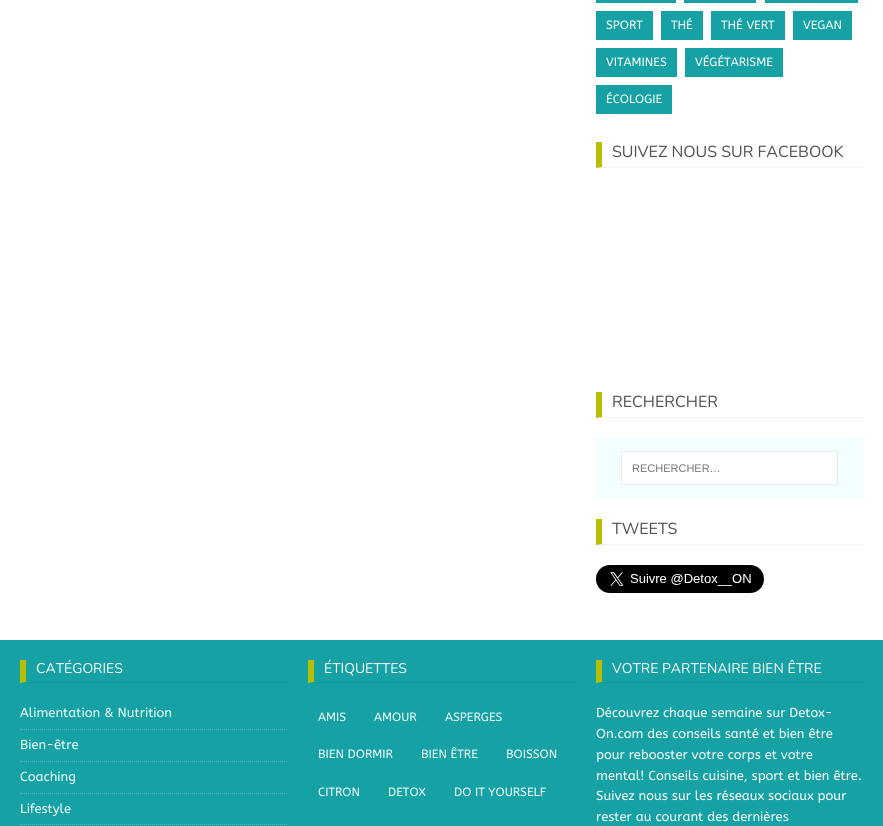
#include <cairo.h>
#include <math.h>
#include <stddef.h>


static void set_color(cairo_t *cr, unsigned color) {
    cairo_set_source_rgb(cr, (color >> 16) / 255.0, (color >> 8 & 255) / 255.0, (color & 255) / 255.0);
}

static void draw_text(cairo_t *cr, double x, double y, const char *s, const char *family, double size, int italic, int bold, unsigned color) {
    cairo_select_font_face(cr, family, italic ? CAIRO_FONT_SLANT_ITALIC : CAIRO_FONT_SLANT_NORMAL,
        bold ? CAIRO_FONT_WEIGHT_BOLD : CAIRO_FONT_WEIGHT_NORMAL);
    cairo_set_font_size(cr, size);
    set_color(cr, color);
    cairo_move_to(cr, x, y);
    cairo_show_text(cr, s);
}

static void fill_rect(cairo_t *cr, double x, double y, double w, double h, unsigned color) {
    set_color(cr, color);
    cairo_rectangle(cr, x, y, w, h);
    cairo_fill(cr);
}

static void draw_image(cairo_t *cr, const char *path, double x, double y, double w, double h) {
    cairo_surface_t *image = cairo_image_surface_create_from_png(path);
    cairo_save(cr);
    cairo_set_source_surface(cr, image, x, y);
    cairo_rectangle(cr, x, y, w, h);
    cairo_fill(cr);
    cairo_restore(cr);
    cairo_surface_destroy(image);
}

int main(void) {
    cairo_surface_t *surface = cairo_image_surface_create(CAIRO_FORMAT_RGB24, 883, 826);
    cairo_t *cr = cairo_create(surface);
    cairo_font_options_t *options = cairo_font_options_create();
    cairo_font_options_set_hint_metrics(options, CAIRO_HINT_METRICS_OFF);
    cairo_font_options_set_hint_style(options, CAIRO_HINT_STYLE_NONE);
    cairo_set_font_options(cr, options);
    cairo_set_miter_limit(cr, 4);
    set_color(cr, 0x16A1A4);
    cairo_paint(cr);
    fill_rect(cr, 0, 0, 883, 640, 0xFFFFFF);
    fill_rect(cr, 596, 0, 80, 3, 0x16A1A4);
    fill_rect(cr, 684, 0, 72, 3, 0x16A1A4);
    fill_rect(cr, 765, 0, 93, 3, 0x16A1A4);
    fill_rect(cr, 596, 11, 57, 29, 0x16A1A4);
    draw_text(cr, 606, 29, "SPORT", "ABeeZee", 12, 0, 0, 0xFFFFFF);
    fill_rect(cr, 661, 11, 42, 29, 0x16A1A4);
    draw_text(cr, 671, 29, "THÉ", "ABeeZee", 12, 0, 0, 0xFFFFFF);
    fill_rect(cr, 711, 11, 74, 29, 0x16A1A4);
    draw_text(cr, 721, 29, "THÉ VERT", "ABeeZee", 12, 0, 0, 0xFFFFFF);
    fill_rect(cr, 793, 11, 59, 29, 0x16A1A4);
    draw_text(cr, 803, 29, "VEGAN", "ABeeZee", 12, 0, 0, 0xFFFFFF);
    fill_rect(cr, 596, 48, 81, 29, 0x16A1A4);
    draw_text(cr, 606, 66, "VITAMINES", "ABeeZee", 12, 0, 0, 0xFFFFFF);
    fill_rect(cr, 685, 48, 98, 29, 0x16A1A4);
    draw_text(cr, 695, 66, "VÉGÉTARISME", "ABeeZee", 12, 0, 0, 0xFFFFFF);
    fill_rect(cr, 596, 85, 76, 29, 0x16A1A4);
    draw_text(cr, 606, 103, "ÉCOLOGIE", "ABeeZee", 12, 0, 0, 0xFFFFFF);
    cairo_new_path(cr);
    cairo_move_to(cr, 596, 167.5);
    cairo_line_to(cr, 863, 167.5);
    set_color(cr, 0xE6E6E6);
    cairo_set_line_width(cr, 1);
    cairo_set_dash(cr, (double[]){1, 1}, 2, 0);
    cairo_stroke(cr);
    set_color(cr, 0xBBBD00);
    cairo_new_path(cr);
    cairo_move_to(cr, 596, 168);
    cairo_line_to(cr, 596, 142);
    cairo_line_to(cr, 602, 142);
    cairo_line_to(cr, 602, 167);
    cairo_close_path(cr);
    cairo_fill(cr);
    draw_text(cr, 612, 157, "SUIVEZ NOUS SUR FACEBOOK", "Nunito ExtraLight", 16, 0, 0, 0x4F4F4F);
    cairo_new_path(cr);
    cairo_move_to(cr, 596, 417.5);
    cairo_line_to(cr, 863, 417.5);
    set_color(cr, 0xE6E6E6);
    cairo_stroke(cr);
    set_color(cr, 0xBBBD00);
    cairo_new_path(cr);
    cairo_move_to(cr, 596, 418);
    cairo_line_to(cr, 596, 392);
    cairo_line_to(cr, 602, 392);
    cairo_line_to(cr, 602, 417);
    cairo_close_path(cr);
    cairo_fill(cr);
    draw_text(cr, 612, 407, "RECHERCHER", "Nunito ExtraLight", 16, 0, 0, 0x4F4F4F);
    fill_rect(cr, 596, 438, 267, 61, 0xF2FFFF);
    set_color(cr, 0xFFFFFF);
    cairo_rectangle(cr, 621.5, 451.5, 216, 33);
    cairo_fill_preserve(cr);
    set_color(cr, 0xEBEBEB);
    cairo_set_dash(cr, NULL, 0, 0);
    cairo_stroke(cr);
    draw_text(cr, 632, 472, "RECHERCHER…", "Liberation Sans", 11, 0, 0, 0x757575);
    cairo_new_path(cr);
    cairo_move_to(cr, 596, 544.5);
    cairo_line_to(cr, 863, 544.5);
    set_color(cr, 0xE6E6E6);
    cairo_set_dash(cr, (double[]){1, 1}, 2, 0);
    cairo_stroke(cr);
    set_color(cr, 0xBBBD00);
    cairo_new_path(cr);
    cairo_move_to(cr, 596, 545);
    cairo_line_to(cr, 596, 519);
    cairo_line_to(cr, 602, 519);
    cairo_line_to(cr, 602, 544);
    cairo_close_path(cr);
    cairo_fill(cr);
    draw_text(cr, 612, 534, "TWEETS", "Nunito ExtraLight", 16, 0, 0, 0x4F4F4F);
    draw_image(cr, "assets/img1.png", 596, 565, 168, 28);
    cairo_new_path(cr);
    cairo_move_to(cr, 20, 682.5);
    cairo_line_to(cr, 287, 682.5);
    set_color(cr, 0x149194);
    cairo_stroke(cr);
    set_color(cr, 0xBBBD00);
    cairo_new_path(cr);
    cairo_move_to(cr, 20, 683);
    cairo_line_to(cr, 20, 660);
    cairo_line_to(cr, 26, 660);
    cairo_line_to(cr, 26, 682);
    cairo_close_path(cr);
    cairo_fill(cr);
    draw_text(cr, 36, 673, "CATÉGORIES", "Nunito ExtraLight", 14, 0, 0, 0xFFFFFF);
    cairo_new_path(cr);
    cairo_move_to(cr, 20, 729.5);
    cairo_line_to(cr, 287, 729.5);
    set_color(cr, 0x5CBDBF);
    cairo_stroke(cr);
    draw_text(cr, 20, 717, "Alimentation & Nutrition", "ABeeZee", 13, 0, 0, 0xF2FFFF);
    cairo_new_path(cr);
    cairo_move_to(cr, 20, 761.5);
    cairo_line_to(cr, 287, 761.5);
    set_color(cr, 0x5CBDBF);
    cairo_stroke(cr);
    draw_text(cr, 20, 749, "Bien-être", "ABeeZee", 13, 0, 0, 0xF2FFFF);
    cairo_new_path(cr);
    cairo_move_to(cr, 20, 793.5);
    cairo_line_to(cr, 287, 793.5);
    set_color(cr, 0x5CBDBF);
    cairo_stroke(cr);
    draw_text(cr, 20, 781, "Coaching", "ABeeZee", 13, 0, 0, 0xF2FFFF);
    cairo_new_path(cr);
    cairo_move_to(cr, 20, 824.5);
    cairo_line_to(cr, 287, 824.5);
    set_color(cr, 0x5CBDBF);
    cairo_stroke(cr);
    draw_text(cr, 20, 813, "Lifestyle", "ABeeZee", 13, 0, 0, 0xF2FFFF);
    cairo_new_path(cr);
    cairo_move_to(cr, 308, 682.5);
    cairo_line_to(cr, 575, 682.5);
    set_color(cr, 0x149194);
    cairo_stroke(cr);
    set_color(cr, 0xBBBD00);
    cairo_new_path(cr);
    cairo_move_to(cr, 308, 683);
    cairo_line_to(cr, 308, 660);
    cairo_line_to(cr, 314, 660);
    cairo_line_to(cr, 314, 682);
    cairo_close_path(cr);
    cairo_fill(cr);
    draw_text(cr, 324, 673, "ÉTIQUETTES", "Nunito ExtraLight", 14, 0, 0, 0xFFFFFF);
    draw_text(cr, 318, 721, "AMIS", "ABeeZee", 12, 0, 0, 0xF2FFFF);
    draw_text(cr, 374, 721, "AMOUR", "ABeeZee", 12, 0, 0, 0xF2FFFF);
    draw_text(cr, 445, 721, "ASPERGES", "ABeeZee", 12, 0, 0, 0xF2FFFF);
    draw_text(cr, 318, 758, "BIEN DORMIR", "ABeeZee", 12, 0, 0, 0xF2FFFF);
    draw_text(cr, 421, 758, "BIEN ÊTRE", "ABeeZee", 12, 0, 0, 0xF2FFFF);
    draw_text(cr, 506, 758, "BOISSON", "ABeeZee", 12, 0, 0, 0xF2FFFF);
    draw_text(cr, 318, 796, "CITRON", "ABeeZee", 12, 0, 0, 0xF2FFFF);
    draw_text(cr, 388, 796, "DETOX", "ABeeZee", 12, 0, 0, 0xF2FFFF);
    draw_text(cr, 454, 796, "DO IT YOURSELF", "ABeeZee", 12, 0, 0, 0xF2FFFF);
    cairo_new_path(cr);
    cairo_move_to(cr, 596, 682.5);
    cairo_line_to(cr, 863, 682.5);
    set_color(cr, 0x149194);
    cairo_stroke(cr);
    set_color(cr, 0xBBBD00);
    cairo_new_path(cr);
    cairo_move_to(cr, 596, 683);
    cairo_line_to(cr, 596, 660);
    cairo_line_to(cr, 602, 660);
    cairo_line_to(cr, 602, 682);
    cairo_close_path(cr);
    cairo_fill(cr);
    draw_text(cr, 612, 673, "VOTRE PARTENAIRE BIEN ÊTRE", "Nunito ExtraLight", 14, 0, 0, 0xFFFFFF);
    draw_text(cr, 596, 717, "Découvrez chaque semaine sur Detox-", "ABeeZee", 13, 0, 0, 0xFFFFFF);
    draw_text(cr, 596, 738, "On.com des conseils santé et bien être", "ABeeZee", 13, 0, 0, 0xFFFFFF);
    draw_text(cr, 596, 759, "pour rebooster votre corps et votre", "ABeeZee", 13, 0, 0, 0xFFFFFF);
    draw_text(cr, 596, 780, "mental! Conseils cuisine, sport et bien être.", "ABeeZee", 13, 0, 0, 0xFFFFFF);
    draw_text(cr, 596, 800, "Suivez nous sur les réseaux sociaux pour", "ABeeZee", 13, 0, 0, 0xFFFFFF);
    draw_text(cr, 596, 821, "rester au courant des dernières", "ABeeZee", 13, 0, 0, 0xFFFFFF);
    cairo_surface_write_to_png(surface, "output.png");
    cairo_font_options_destroy(options);
    cairo_destroy(cr);
    cairo_surface_destroy(surface);
    return 0;
}
